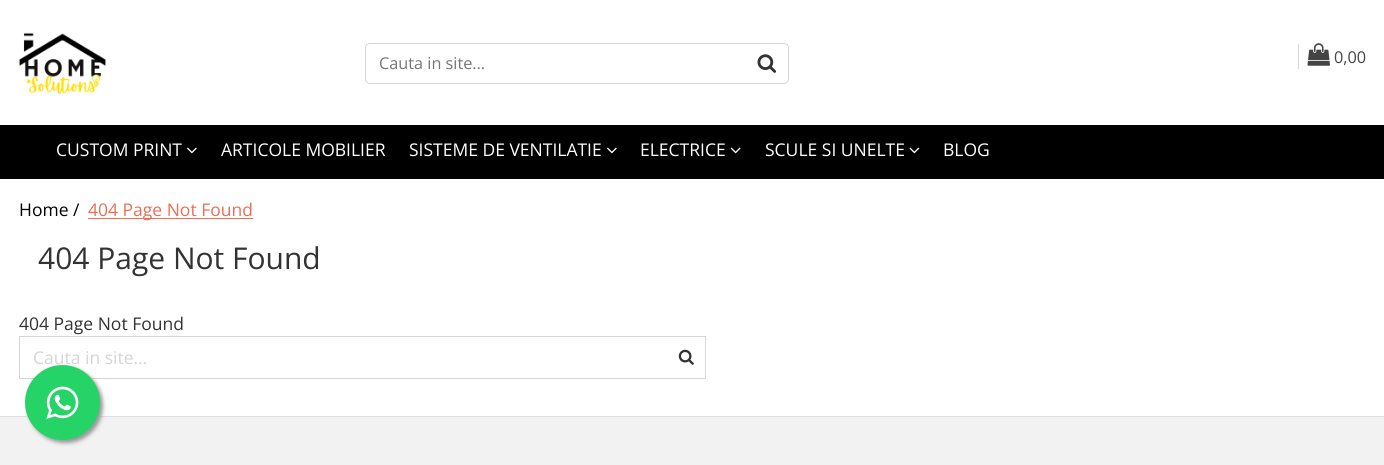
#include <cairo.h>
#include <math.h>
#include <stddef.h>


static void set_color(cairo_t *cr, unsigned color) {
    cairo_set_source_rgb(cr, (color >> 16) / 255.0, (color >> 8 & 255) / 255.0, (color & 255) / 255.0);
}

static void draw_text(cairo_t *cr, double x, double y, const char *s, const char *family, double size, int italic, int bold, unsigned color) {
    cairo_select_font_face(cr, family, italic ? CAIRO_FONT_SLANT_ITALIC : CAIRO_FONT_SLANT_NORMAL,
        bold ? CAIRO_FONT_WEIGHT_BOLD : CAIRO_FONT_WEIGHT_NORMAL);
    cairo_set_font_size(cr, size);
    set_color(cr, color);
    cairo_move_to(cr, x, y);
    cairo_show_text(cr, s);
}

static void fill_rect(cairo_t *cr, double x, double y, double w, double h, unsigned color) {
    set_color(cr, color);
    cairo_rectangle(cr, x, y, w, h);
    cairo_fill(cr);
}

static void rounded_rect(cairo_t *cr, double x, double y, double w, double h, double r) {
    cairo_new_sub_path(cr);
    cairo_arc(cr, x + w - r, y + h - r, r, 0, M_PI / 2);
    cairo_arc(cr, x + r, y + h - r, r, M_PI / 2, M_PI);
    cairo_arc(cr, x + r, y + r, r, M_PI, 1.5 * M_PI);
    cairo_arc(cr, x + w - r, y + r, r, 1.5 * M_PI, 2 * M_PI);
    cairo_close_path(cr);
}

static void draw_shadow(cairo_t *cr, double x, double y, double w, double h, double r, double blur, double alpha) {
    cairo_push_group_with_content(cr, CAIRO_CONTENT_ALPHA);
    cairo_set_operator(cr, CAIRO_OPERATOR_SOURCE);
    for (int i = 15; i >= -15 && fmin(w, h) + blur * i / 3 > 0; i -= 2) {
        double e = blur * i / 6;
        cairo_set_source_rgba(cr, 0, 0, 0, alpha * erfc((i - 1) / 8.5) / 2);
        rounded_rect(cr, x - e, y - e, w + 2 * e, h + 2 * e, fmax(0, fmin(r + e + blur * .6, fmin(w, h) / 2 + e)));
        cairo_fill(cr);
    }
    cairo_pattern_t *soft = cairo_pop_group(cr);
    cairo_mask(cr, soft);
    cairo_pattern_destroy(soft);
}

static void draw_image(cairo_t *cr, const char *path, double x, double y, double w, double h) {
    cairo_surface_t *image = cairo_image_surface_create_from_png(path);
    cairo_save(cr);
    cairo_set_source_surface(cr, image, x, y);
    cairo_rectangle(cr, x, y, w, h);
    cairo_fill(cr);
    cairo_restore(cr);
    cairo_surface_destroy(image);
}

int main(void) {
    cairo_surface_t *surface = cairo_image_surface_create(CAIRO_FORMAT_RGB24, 1384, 465);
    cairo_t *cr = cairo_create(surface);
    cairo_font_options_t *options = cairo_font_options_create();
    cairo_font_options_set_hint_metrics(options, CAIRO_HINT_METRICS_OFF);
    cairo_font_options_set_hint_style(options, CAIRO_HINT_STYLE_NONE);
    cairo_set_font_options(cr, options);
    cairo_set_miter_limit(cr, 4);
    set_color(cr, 0xFFFFFF);
    cairo_paint(cr);
    draw_image(cr, "assets/img1.png", 18, 32, 89, 62);
    rounded_rect(cr, 365.5, 43.5, 423, 40, 4.5);
    set_color(cr, 0xD5D5D5);
    cairo_set_line_width(cr, 1);
    cairo_stroke(cr);
    draw_text(cr, 379, 69, "Cauta in site...", "Open Sans", 16.25, 0, 0, 0x757575);
    draw_image(cr, "assets/img2.png", 757, 54, 20, 19);
    fill_rect(cr, 1298, 44, 1, 25, 0xD5D5D5);
    draw_image(cr, "assets/img3.png", 1307, 43, 23, 23);
    draw_text(cr, 1334, 63, "0,00", "Open Sans", 16.25, 0, 0, 0x444444);
    fill_rect(cr, 0, 125, 1384, 54, 0x000000);
    draw_text(cr, 56, 156, "CUSTOM PRINT", "Open Sans", 17.5, 0, 0, 0xFFFFFF);
    draw_image(cr, "assets/img4.png", 187, 147, 10, 7);
    draw_text(cr, 221, 156, "ARTICOLE MOBILIER", "Open Sans", 17.5, 0, 0, 0xFFFFFF);
    draw_text(cr, 409, 156, "SISTEME DE VENTILATIE", "Open Sans", 17.5, 0, 0, 0xFFFFFF);
    draw_image(cr, "assets/img4.png", 607, 147, 10, 7);
    draw_text(cr, 640, 156, "ELECTRICE", "Open Sans", 17.5, 0, 0, 0xFFFFFF);
    draw_image(cr, "assets/img5.png", 730, 147, 11, 7);
    draw_text(cr, 765, 156, "SCULE SI UNELTE", "Open Sans", 17.5, 0, 0, 0xFFFFFF);
    draw_image(cr, "assets/img6.png", 909, 147, 11, 7);
    draw_text(cr, 943, 156, "BLOG", "Open Sans", 17.5, 0, 0, 0xFFFFFF);
    draw_text(cr, 19, 216, "Home /", "Open Sans", 17.5, 0, 0, 0x000000);
    fill_rect(cr, 88, 218, 165, 1, 0xE96F56);
    draw_text(cr, 88, 216, "404 Page Not Found", "Open Sans", 17.5, 0, 0, 0xE96F56);
    draw_text(cr, 38, 269, "404 Page Not Found", "Open Sans", 30, 0, 0, 0x333333);
    draw_text(cr, 19, 330, "404 Page Not Found", "Open Sans", 17.5, 0, 0, 0x333333);
    cairo_rectangle(cr, 19.5, 336.5, 686, 42);
    set_color(cr, 0xD5D5D5);
    cairo_stroke(cr);
    draw_text(cr, 33, 364, "Cauta in site...", "Open Sans", 17.5, 0, 0, 0xD5D5D5);
    draw_image(cr, "assets/img7.png", 678, 349, 16, 16);
    fill_rect(cr, 0, 417, 1384, 48, 0xF2F2F2);
    fill_rect(cr, 0, 416, 1384, 1, 0xDFDFDF);
    set_color(cr, 0x999999);
    draw_shadow(cr, 28, 368, 75, 75, 37.5, 2, 1);
    set_color(cr, 0x25D366);
    cairo_arc(cr, 62.5, 402.5, 37.5, 0, 2 * M_PI);
    cairo_fill(cr);
    draw_image(cr, "assets/img8.png", 46, 386, 33, 33);
    cairo_surface_write_to_png(surface, "output.png");
    cairo_font_options_destroy(options);
    cairo_destroy(cr);
    cairo_surface_destroy(surface);
    return 0;
}
